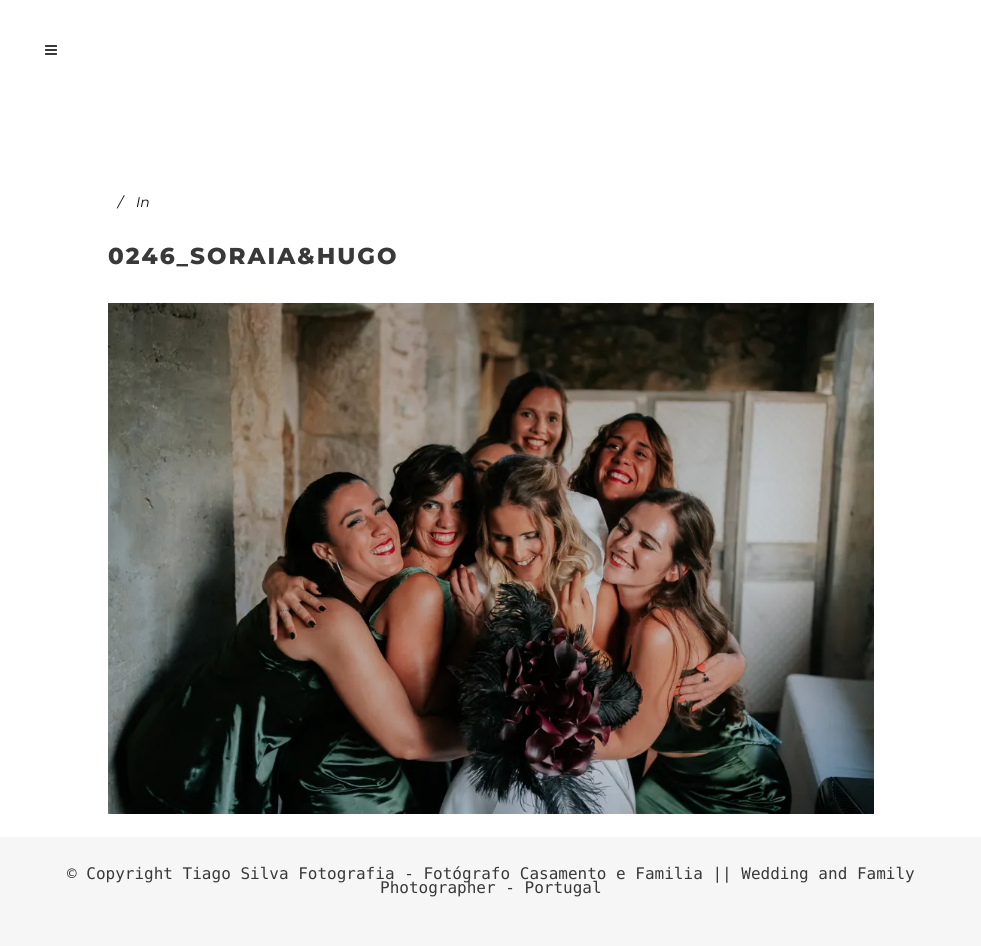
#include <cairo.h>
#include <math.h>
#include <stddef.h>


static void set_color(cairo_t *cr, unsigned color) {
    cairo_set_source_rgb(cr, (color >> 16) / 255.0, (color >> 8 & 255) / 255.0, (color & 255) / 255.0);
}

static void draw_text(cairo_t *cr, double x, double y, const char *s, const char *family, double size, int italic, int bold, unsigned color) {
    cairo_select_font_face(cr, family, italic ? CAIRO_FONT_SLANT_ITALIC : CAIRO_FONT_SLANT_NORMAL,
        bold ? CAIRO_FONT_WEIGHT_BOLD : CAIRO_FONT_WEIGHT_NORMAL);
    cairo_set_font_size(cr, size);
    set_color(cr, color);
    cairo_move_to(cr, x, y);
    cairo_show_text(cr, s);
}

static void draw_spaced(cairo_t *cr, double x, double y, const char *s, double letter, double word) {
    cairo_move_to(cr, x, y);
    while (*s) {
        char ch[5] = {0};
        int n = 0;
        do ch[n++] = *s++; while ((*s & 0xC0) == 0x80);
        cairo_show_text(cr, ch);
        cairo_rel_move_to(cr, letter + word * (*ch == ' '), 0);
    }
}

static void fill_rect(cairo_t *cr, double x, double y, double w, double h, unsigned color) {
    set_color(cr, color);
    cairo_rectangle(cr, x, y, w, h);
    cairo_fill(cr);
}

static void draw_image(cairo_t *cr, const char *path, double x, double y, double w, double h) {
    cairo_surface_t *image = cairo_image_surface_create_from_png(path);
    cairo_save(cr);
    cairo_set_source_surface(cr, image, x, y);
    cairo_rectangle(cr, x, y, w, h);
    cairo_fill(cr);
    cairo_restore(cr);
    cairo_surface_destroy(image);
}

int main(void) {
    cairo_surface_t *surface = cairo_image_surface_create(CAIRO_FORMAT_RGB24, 981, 946);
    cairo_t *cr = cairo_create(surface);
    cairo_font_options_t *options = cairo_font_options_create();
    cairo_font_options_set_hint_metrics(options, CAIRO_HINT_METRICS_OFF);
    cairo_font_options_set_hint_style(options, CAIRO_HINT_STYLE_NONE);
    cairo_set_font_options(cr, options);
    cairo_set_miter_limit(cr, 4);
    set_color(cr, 0xFFFFFF);
    cairo_paint(cr);
    draw_image(cr, "assets/img1.png", 45, 45, 12, 10);
    draw_text(cr, 118, 207, "/", "Montserrat", 14, 1, 0, 0x0A0A0A);
    draw_text(cr, 136, 207, "In", "Montserrat", 14, 1, 0, 0x0A0A0A);
    cairo_select_font_face(cr, "Montserrat ExtraBold", CAIRO_FONT_SLANT_NORMAL, CAIRO_FONT_WEIGHT_NORMAL);
    cairo_set_font_size(cr, 23);
    set_color(cr, 0x393939);
    draw_spaced(cr, 108, 264, "0246_SORAIA&HUGO", 2, 0);
    draw_image(cr, "assets/img2.png", 108, 303, 766, 511);
    fill_rect(cr, 0, 837, 981, 109, 0xF6F6F6);
    draw_text(cr, 67, 879, "© Copyright Tiago Silva Fotografia - Fotógrafo Casamento e Familia || Wedding and Family", "DejaVu Sans Mono", 16, 0, 0, 0x393939);
    draw_text(cr, 380, 893, "Photographer - Portugal", "DejaVu Sans Mono", 16, 0, 0, 0x393939);
    cairo_surface_write_to_png(surface, "output.png");
    cairo_font_options_destroy(options);
    cairo_destroy(cr);
    cairo_surface_destroy(surface);
    return 0;
}
